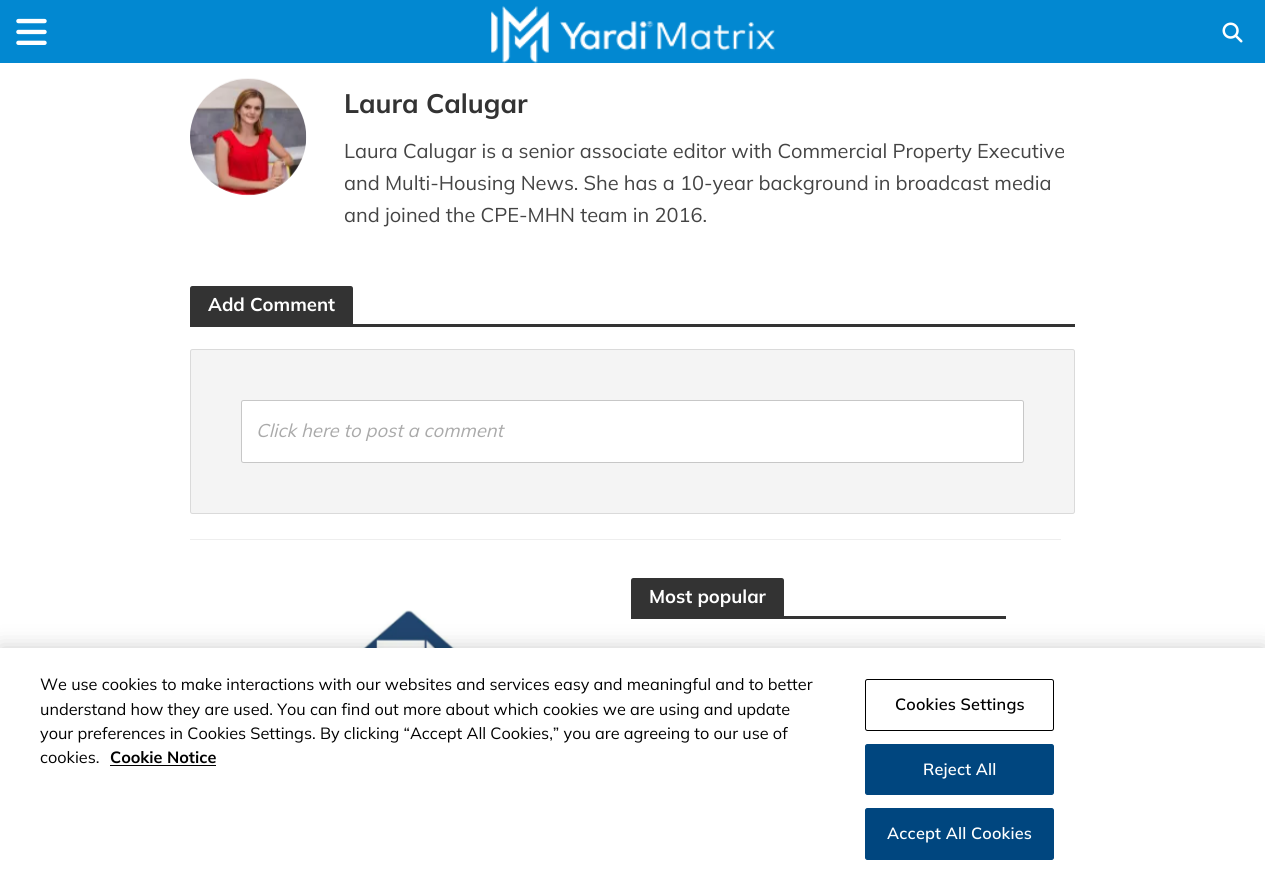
#include <cairo.h>
#include <math.h>
#include <stddef.h>


static void set_color(cairo_t *cr, unsigned color) {
    cairo_set_source_rgb(cr, (color >> 16) / 255.0, (color >> 8 & 255) / 255.0, (color & 255) / 255.0);
}

static void draw_text(cairo_t *cr, double x, double y, const char *s, const char *family, double size, int italic, int bold, unsigned color) {
    cairo_select_font_face(cr, family, italic ? CAIRO_FONT_SLANT_ITALIC : CAIRO_FONT_SLANT_NORMAL,
        bold ? CAIRO_FONT_WEIGHT_BOLD : CAIRO_FONT_WEIGHT_NORMAL);
    cairo_set_font_size(cr, size);
    set_color(cr, color);
    cairo_move_to(cr, x, y);
    cairo_show_text(cr, s);
}

static void draw_spaced(cairo_t *cr, double x, double y, const char *s, double letter, double word) {
    cairo_move_to(cr, x, y);
    while (*s) {
        char ch[5] = {0};
        int n = 0;
        do ch[n++] = *s++; while ((*s & 0xC0) == 0x80);
        cairo_show_text(cr, ch);
        cairo_rel_move_to(cr, letter + word * (*ch == ' '), 0);
    }
}

static void fill_rect(cairo_t *cr, double x, double y, double w, double h, unsigned color) {
    set_color(cr, color);
    cairo_rectangle(cr, x, y, w, h);
    cairo_fill(cr);
}

static void rounded_rect(cairo_t *cr, double x, double y, double w, double h, double r) {
    cairo_new_sub_path(cr);
    cairo_arc(cr, x + w - r, y + h - r, r, 0, M_PI / 2);
    cairo_arc(cr, x + r, y + h - r, r, M_PI / 2, M_PI);
    cairo_arc(cr, x + r, y + r, r, M_PI, 1.5 * M_PI);
    cairo_arc(cr, x + w - r, y + r, r, 1.5 * M_PI, 2 * M_PI);
    cairo_close_path(cr);
}

static void draw_shadow(cairo_t *cr, double x, double y, double w, double h, double r, double blur, double alpha) {
    cairo_push_group_with_content(cr, CAIRO_CONTENT_ALPHA);
    cairo_set_operator(cr, CAIRO_OPERATOR_SOURCE);
    for (int i = 15; i >= -15 && fmin(w, h) + blur * i / 3 > 0; i -= 2) {
        double e = blur * i / 6;
        cairo_set_source_rgba(cr, 0, 0, 0, alpha * erfc((i - 1) / 8.5) / 2);
        rounded_rect(cr, x - e, y - e, w + 2 * e, h + 2 * e, fmax(0, fmin(r + e + blur * .6, fmin(w, h) / 2 + e)));
        cairo_fill(cr);
    }
    cairo_pattern_t *soft = cairo_pop_group(cr);
    cairo_mask(cr, soft);
    cairo_pattern_destroy(soft);
}

static void draw_image(cairo_t *cr, const char *path, double x, double y, double w, double h) {
    cairo_surface_t *image = cairo_image_surface_create_from_png(path);
    cairo_save(cr);
    cairo_set_source_surface(cr, image, x, y);
    cairo_rectangle(cr, x, y, w, h);
    cairo_fill(cr);
    cairo_restore(cr);
    cairo_surface_destroy(image);
}

int main(void) {
    cairo_surface_t *surface = cairo_image_surface_create(CAIRO_FORMAT_RGB24, 1265, 885);
    cairo_t *cr = cairo_create(surface);
    cairo_font_options_t *options = cairo_font_options_create();
    cairo_font_options_set_hint_metrics(options, CAIRO_HINT_METRICS_OFF);
    cairo_font_options_set_hint_style(options, CAIRO_HINT_STYLE_NONE);
    cairo_set_font_options(cr, options);
    cairo_set_miter_limit(cr, 4);
    set_color(cr, 0xFFFFFF);
    cairo_paint(cr);
    fill_rect(cr, 0, 0, 1265, 63, 0x0288D1);
    draw_image(cr, "assets/img1.png", 16, 18, 31, 27);
    draw_image(cr, "assets/img2.png", 491, 6, 284, 57);
    draw_image(cr, "assets/img3.png", 1222, 22, 21, 21);
    draw_image(cr, "assets/img4.png", 190, 78, 117, 118);
    draw_text(cr, 344, 113, "Laura Calugar", "Mulish", 26.75, 0, 1, 0x333333);
    draw_text(cr, 344, 158, "Laura Calugar is a senior associate editor with Commercial Property Executive", "Mulish", 20, 0, 0, 0x444444);
    draw_text(cr, 344, 190, "and Multi-Housing News. She has a 10-year background in broadcast media", "Mulish", 20, 0, 0, 0x444444);
    draw_text(cr, 344, 222, "and joined the CPE-MHN team in 2016.", "Mulish", 20, 0, 0, 0x444444);
    set_color(cr, 0x333333);
    cairo_new_path(cr);
    cairo_move_to(cr, 192.5, 286);
    cairo_line_to(cr, 350.5, 286);
    cairo_curve_to(cr, 352, 286, 353, 287, 353, 288.5);
    cairo_line_to(cr, 353, 324);
    cairo_line_to(cr, 190, 324);
    cairo_line_to(cr, 190, 288.5);
    cairo_curve_to(cr, 190, 287, 191, 286, 192.5, 286);
    cairo_close_path(cr);
    cairo_fill(cr);
    draw_text(cr, 208, 311, "Add Comment", "Mulish", 18.5, 0, 1, 0xFFFFFF);
    fill_rect(cr, 190, 324, 885, 3, 0x333333);
    set_color(cr, 0xF4F4F4);
    rounded_rect(cr, 190, 349, 885, 165, 2.5);
    cairo_fill(cr);
    rounded_rect(cr, 190.5, 349.5, 884, 164, 2);
    cairo_set_source_rgba(cr, 0.267, 0.267, 0.267, 0.15);
    cairo_set_line_width(cr, 1);
    cairo_stroke(cr);
    set_color(cr, 0xFFFFFF);
    rounded_rect(cr, 241, 400, 783, 63, 2.5);
    cairo_fill(cr);
    rounded_rect(cr, 241.5, 400.5, 782, 62, 2);
    cairo_set_source_rgba(cr, 0.267, 0.267, 0.267, 0.3);
    cairo_stroke(cr);
    draw_text(cr, 256, 437, "Click here to post a comment", "Mulish", 18.5, 1, 0, 0xAAAAAA);
    fill_rect(cr, 190, 539, 871, 1, 0xEEEEEE);
    set_color(cr, 0x333333);
    cairo_new_path(cr);
    cairo_move_to(cr, 633.5, 578);
    cairo_line_to(cr, 781.5, 578);
    cairo_curve_to(cr, 783, 578, 784, 579, 784, 580.5);
    cairo_line_to(cr, 784, 616);
    cairo_line_to(cr, 631, 616);
    cairo_line_to(cr, 631, 580.5);
    cairo_curve_to(cr, 631, 579, 632, 578, 633.5, 578);
    cairo_close_path(cr);
    cairo_fill(cr);
    draw_text(cr, 649, 603, "Most popular", "Mulish", 18.5, 0, 1, 0xFFFFFF);
    fill_rect(cr, 631, 616, 375, 3, 0x333333);
    draw_image(cr, "assets/img5.png", 230, 610, 350, 38);
    set_color(cr, 0x000000);
    draw_shadow(cr, 0, 648, 1265, 237, 0, 11, 0.2);
    fill_rect(cr, 0, 648, 1265, 237, 0xFFFFFF);
    draw_text(cr, 40, 690, "We use cookies to make interactions with our websites and services easy and meaningful and to better", "Mulish", 16.25, 0, 0, 0x000000);
    draw_text(cr, 40, 715, "understand how they are used. You can find out more about which cookies we are using and update", "Mulish", 16.25, 0, 0, 0x000000);
    draw_text(cr, 40, 739, "your preferences in Cookies Settings. By clicking “Accept All Cookies,” you are agreeing to our use of", "Mulish", 16.25, 0, 0, 0x000000);
    draw_text(cr, 40, 763, "cookies.", "Mulish", 16.25, 0, 0, 0x000000);
    draw_text(cr, 110, 763, "Cookie Notice", "Mulish", 16.25, 0, 1, 0x000000);
    fill_rect(cr, 110, 765, 106, 1, 0x000000);
    rounded_rect(cr, 865.5, 679.5, 188, 51, 2);
    cairo_stroke(cr);
    cairo_select_font_face(cr, "Mulish SemiBold", CAIRO_FONT_SLANT_NORMAL, CAIRO_FONT_WEIGHT_NORMAL);
    draw_spaced(cr, 895, 710, "Cookies Settings", 0.2, 0);
    set_color(cr, 0x00467F);
    rounded_rect(cr, 865.5, 744.5, 188, 50, 2);
    cairo_fill_preserve(cr);
    cairo_stroke(cr);
    set_color(cr, 0xFFFFFF);
    draw_spaced(cr, 923, 775, "Reject All", 0.2, 0);
    set_color(cr, 0x00467F);
    rounded_rect(cr, 865.5, 808.5, 188, 51, 2);
    cairo_fill_preserve(cr);
    cairo_stroke(cr);
    set_color(cr, 0xFFFFFF);
    draw_spaced(cr, 887, 839, "Accept All Cookies", 0.2, 0);
    cairo_surface_write_to_png(surface, "output.png");
    cairo_font_options_destroy(options);
    cairo_destroy(cr);
    cairo_surface_destroy(surface);
    return 0;
}
